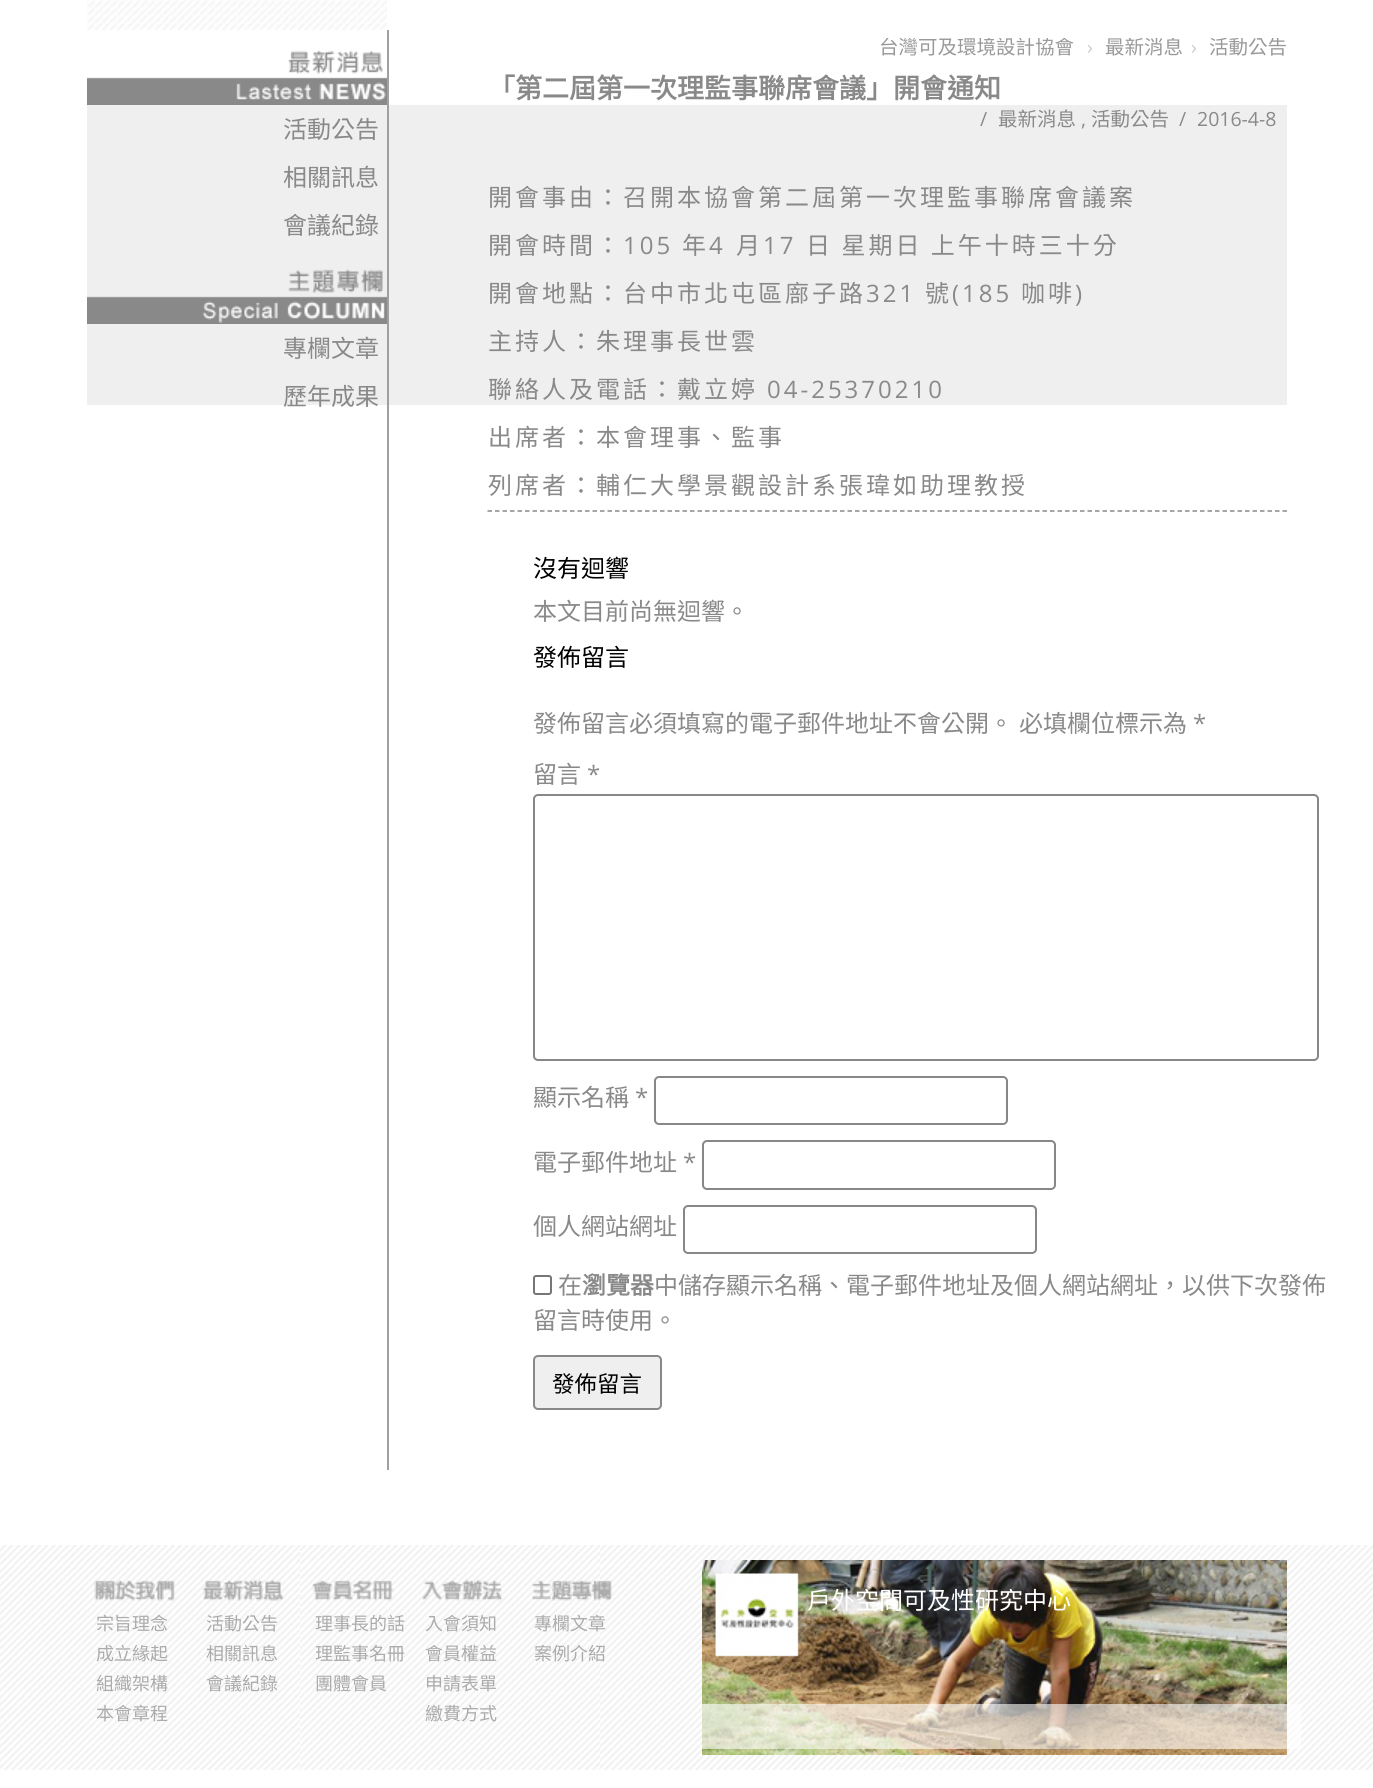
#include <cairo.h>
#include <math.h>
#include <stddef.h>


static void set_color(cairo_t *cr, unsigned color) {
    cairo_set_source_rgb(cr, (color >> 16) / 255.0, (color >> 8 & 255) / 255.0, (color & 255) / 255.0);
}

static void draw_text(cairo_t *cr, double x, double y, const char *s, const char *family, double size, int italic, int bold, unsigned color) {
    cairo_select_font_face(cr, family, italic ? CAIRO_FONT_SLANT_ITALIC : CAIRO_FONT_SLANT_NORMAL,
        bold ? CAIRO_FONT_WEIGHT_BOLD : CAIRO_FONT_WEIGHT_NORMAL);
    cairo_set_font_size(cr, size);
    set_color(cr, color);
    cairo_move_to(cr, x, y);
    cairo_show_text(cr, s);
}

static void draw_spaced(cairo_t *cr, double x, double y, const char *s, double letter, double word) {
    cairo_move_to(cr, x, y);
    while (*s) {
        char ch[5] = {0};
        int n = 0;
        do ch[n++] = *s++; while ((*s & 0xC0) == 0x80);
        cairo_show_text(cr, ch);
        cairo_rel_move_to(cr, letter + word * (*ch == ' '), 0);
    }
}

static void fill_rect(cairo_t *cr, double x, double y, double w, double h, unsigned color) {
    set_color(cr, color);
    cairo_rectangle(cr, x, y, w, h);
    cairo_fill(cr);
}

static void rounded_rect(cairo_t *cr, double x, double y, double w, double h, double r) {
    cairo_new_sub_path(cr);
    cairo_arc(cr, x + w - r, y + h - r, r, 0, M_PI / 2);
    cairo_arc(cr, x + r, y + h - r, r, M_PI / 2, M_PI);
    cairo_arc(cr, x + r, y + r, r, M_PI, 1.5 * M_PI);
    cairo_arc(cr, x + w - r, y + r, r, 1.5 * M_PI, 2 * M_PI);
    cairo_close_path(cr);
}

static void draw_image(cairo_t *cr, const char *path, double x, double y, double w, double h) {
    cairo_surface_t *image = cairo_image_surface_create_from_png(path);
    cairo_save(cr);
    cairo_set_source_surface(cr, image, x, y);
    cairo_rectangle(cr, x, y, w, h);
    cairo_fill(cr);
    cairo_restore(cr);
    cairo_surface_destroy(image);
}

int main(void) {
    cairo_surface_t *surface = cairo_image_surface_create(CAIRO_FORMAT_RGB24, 1373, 1788);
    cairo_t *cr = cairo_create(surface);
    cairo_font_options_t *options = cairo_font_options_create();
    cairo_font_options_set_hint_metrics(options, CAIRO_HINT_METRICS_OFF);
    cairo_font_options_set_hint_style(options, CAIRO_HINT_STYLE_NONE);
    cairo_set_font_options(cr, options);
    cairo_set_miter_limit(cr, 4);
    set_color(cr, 0xFFFFFF);
    cairo_paint(cr);
    draw_image(cr, "assets/img1.png", 87, 0, 300, 30);
    fill_rect(cr, 87, 105, 1200, 300, 0xEFEFEF);
    draw_image(cr, "assets/img2.png", 87, 50, 300, 55);
    draw_text(cr, 283, 138, "活動公告", "Noto Sans CJK TC", 24, 0, 0, 0x898989);
    draw_text(cr, 283, 186, "相關訊息", "Noto Sans CJK TC", 24, 0, 0, 0x898989);
    draw_text(cr, 283, 234, "會議紀錄", "Noto Sans CJK TC", 24, 0, 0, 0x898989);
    draw_image(cr, "assets/img3.png", 87, 269, 300, 55);
    draw_text(cr, 283, 357, "專欄文章", "Noto Sans CJK TC", 24, 0, 0, 0x898989);
    draw_text(cr, 283, 405, "歷年成果", "Noto Sans CJK TC", 24, 0, 0, 0x898989);
    fill_rect(cr, 387, 30, 2, 1440, 0xA0A0A0);
    cairo_save(cr);
    cairo_rectangle(cr, 879, 38, 408, 19);
    cairo_clip(cr);
    draw_text(cr, 879, 54, "台灣可及環境設計協會", "Noto Sans CJK TC", 19.5, 0, 0, 0x999999);
    cairo_restore(cr);
    draw_text(cr, 1087, 54, "›", "Open Sans", 19.5, 0, 0, 0xCCCCCC);
    cairo_save(cr);
    cairo_rectangle(cr, 879, 38, 408, 19);
    cairo_clip(cr);
    draw_text(cr, 1105, 54, "最新消息", "Noto Sans CJK TC", 19.5, 0, 0, 0x999999);
    cairo_restore(cr);
    draw_text(cr, 1191, 54, "›", "Open Sans", 19.5, 0, 0, 0xCCCCCC);
    cairo_save(cr);
    cairo_rectangle(cr, 879, 38, 408, 19);
    cairo_clip(cr);
    draw_text(cr, 1209, 54, "活動公告", "Noto Sans CJK TC", 19.5, 0, 0, 0x999999);
    cairo_restore(cr);
    cairo_new_path(cr);
    cairo_move_to(cr, 487.5, 511);
    cairo_line_to(cr, 1287, 511);
    set_color(cr, 0x898989);
    cairo_set_line_width(cr, 1.5);
    cairo_set_dash(cr, (double[]){4.5, 3}, 2, 0);
    cairo_stroke(cr);
    draw_text(cr, 488, 98, "「第二屆第一次理監事聯席會議」開會通知", "Noto Sans CJK TC", 27, 0, 1, 0x898989);
    draw_text(cr, 980, 126, "/", "Open Sans", 19.5, 0, 0, 0x898989);
    draw_text(cr, 998, 126, "最新消息", "Noto Sans CJK TC", 19.5, 0, 0, 0x898989);
    draw_text(cr, 1081, 126, ",", "Open Sans", 19.5, 0, 0, 0x898989);
    draw_text(cr, 1091, 126, "活動公告", "Noto Sans CJK TC", 19.5, 0, 0, 0x898989);
    draw_text(cr, 1179, 126, "/", "Open Sans", 19.5, 0, 0, 0x898989);
    draw_text(cr, 1197, 126, "2016-4-8", "Open Sans", 19.5, 0, 0, 0x898989);
    cairo_select_font_face(cr, "Noto Sans CJK TC", CAIRO_FONT_SLANT_NORMAL, CAIRO_FONT_WEIGHT_NORMAL);
    cairo_set_font_size(cr, 24);
    draw_spaced(cr, 488, 206, "開會事由：召開本協會第二屆第一次理監事聯席會議案", 3, 0);
    draw_spaced(cr, 488, 254, "開會時間：", 3, 0);
    cairo_select_font_face(cr, "Open Sans", CAIRO_FONT_SLANT_NORMAL, CAIRO_FONT_WEIGHT_NORMAL);
    draw_spaced(cr, 623, 254, "105", 3, 0);
    cairo_select_font_face(cr, "Noto Sans CJK TC", CAIRO_FONT_SLANT_NORMAL, CAIRO_FONT_WEIGHT_NORMAL);
    draw_spaced(cr, 682, 254, "年", 3, 0);
    cairo_select_font_face(cr, "Open Sans", CAIRO_FONT_SLANT_NORMAL, CAIRO_FONT_WEIGHT_NORMAL);
    draw_spaced(cr, 709, 254, "4", 3, 0);
    cairo_select_font_face(cr, "Noto Sans CJK TC", CAIRO_FONT_SLANT_NORMAL, CAIRO_FONT_WEIGHT_NORMAL);
    draw_spaced(cr, 736, 254, "月", 3, 0);
    cairo_select_font_face(cr, "Open Sans", CAIRO_FONT_SLANT_NORMAL, CAIRO_FONT_WEIGHT_NORMAL);
    draw_spaced(cr, 763, 254, "17", 3, 0);
    cairo_select_font_face(cr, "Noto Sans CJK TC", CAIRO_FONT_SLANT_NORMAL, CAIRO_FONT_WEIGHT_NORMAL);
    draw_spaced(cr, 806, 254, "日 星期日 上午十時三十分", 3, 0);
    draw_spaced(cr, 488, 302, "開會地點：台中市北屯區廍子路", 3, 0);
    cairo_select_font_face(cr, "Open Sans", CAIRO_FONT_SLANT_NORMAL, CAIRO_FONT_WEIGHT_NORMAL);
    draw_spaced(cr, 866, 302, "321", 3, 0);
    cairo_select_font_face(cr, "Noto Sans CJK TC", CAIRO_FONT_SLANT_NORMAL, CAIRO_FONT_WEIGHT_NORMAL);
    draw_spaced(cr, 925, 302, "號", 3, 0);
    cairo_select_font_face(cr, "Open Sans", CAIRO_FONT_SLANT_NORMAL, CAIRO_FONT_WEIGHT_NORMAL);
    draw_spaced(cr, 952, 302, "(185", 3, 0);
    cairo_select_font_face(cr, "Noto Sans CJK TC", CAIRO_FONT_SLANT_NORMAL, CAIRO_FONT_WEIGHT_NORMAL);
    draw_spaced(cr, 1021, 302, "咖啡", 3, 0);
    cairo_select_font_face(cr, "Open Sans", CAIRO_FONT_SLANT_NORMAL, CAIRO_FONT_WEIGHT_NORMAL);
    draw_spaced(cr, 1075, 302, ")", 3, 0);
    cairo_select_font_face(cr, "Noto Sans CJK TC", CAIRO_FONT_SLANT_NORMAL, CAIRO_FONT_WEIGHT_NORMAL);
    draw_spaced(cr, 488, 350, "主持人：朱理事長世雲", 3, 0);
    draw_spaced(cr, 488, 398, "聯絡人及電話：戴立婷", 3, 0);
    cairo_select_font_face(cr, "Open Sans", CAIRO_FONT_SLANT_NORMAL, CAIRO_FONT_WEIGHT_NORMAL);
    draw_spaced(cr, 767, 398, "04-25370210", 3, 0);
    cairo_select_font_face(cr, "Noto Sans CJK TC", CAIRO_FONT_SLANT_NORMAL, CAIRO_FONT_WEIGHT_NORMAL);
    draw_spaced(cr, 488, 446, "出席者：本會理事、監事", 3, 0);
    draw_spaced(cr, 488, 494, "列席者：輔仁大學景觀設計系張瑋如助理教授", 3, 0);
    draw_text(cr, 533, 577, "沒有迴響", "Noto Sans CJK TC", 24, 0, 0, 0x000000);
    draw_text(cr, 533, 620, "本文目前尚無迴響。", "Noto Sans CJK TC", 24, 0, 0, 0x898989);
    draw_text(cr, 533, 666, "發佈留言", "Noto Sans CJK TC", 24, 0, 0, 0x000000);
    draw_text(cr, 533, 732, "發佈留言必須填寫的電子郵件地址不會公開。", "Noto Sans CJK TC", 24, 0, 0, 0x898989);
    draw_text(cr, 1019, 732, "必填欄位標示為", "Noto Sans CJK TC", 24, 0, 0, 0x898989);
    draw_text(cr, 1193, 732, "*", "Open Sans", 24, 0, 0, 0x898989);
    draw_text(cr, 533, 783, "留言", "Noto Sans CJK TC", 24, 0, 0, 0x898989);
    draw_text(cr, 587, 783, "*", "Open Sans", 24, 0, 0, 0x898989);
    rounded_rect(cr, 534, 795, 784, 265, 4);
    set_color(cr, 0x878787);
    cairo_set_line_width(cr, 2);
    cairo_set_dash(cr, NULL, 0, 0);
    cairo_stroke(cr);
    draw_text(cr, 533, 1106, "顯示名稱", "Noto Sans CJK TC", 24, 0, 0, 0x898989);
    draw_text(cr, 635, 1106, "*", "Open Sans", 24, 0, 0, 0x898989);
    rounded_rect(cr, 655, 1077, 352, 47, 4);
    set_color(cr, 0x878787);
    cairo_stroke(cr);
    draw_text(cr, 533, 1171, "電子郵件地址", "Noto Sans CJK TC", 24, 0, 0, 0x898989);
    draw_text(cr, 683, 1171, "*", "Open Sans", 24, 0, 0, 0x898989);
    rounded_rect(cr, 703, 1141, 352, 48, 4);
    set_color(cr, 0x878787);
    cairo_stroke(cr);
    draw_text(cr, 533, 1235, "個人網站網址", "Noto Sans CJK TC", 24, 0, 0, 0x898989);
    rounded_rect(cr, 684, 1206, 352, 47, 4);
    set_color(cr, 0x878787);
    cairo_stroke(cr);
    rounded_rect(cr, 534, 1276, 17, 18, 2);
    set_color(cr, 0x767676);
    cairo_stroke(cr);
    draw_text(cr, 558, 1294, "在", "Noto Sans CJK TC", 24, 0, 0, 0x898989);
    draw_text(cr, 582, 1294, "瀏覽器", "Noto Sans CJK TC", 24, 0, 1, 0x898989);
    draw_text(cr, 654, 1294, "中儲存顯示名稱、電子郵件地址及個人網站網址，以供下次發佈", "Noto Sans CJK TC", 24, 0, 0, 0x898989);
    draw_text(cr, 533, 1329, "留言時使用。", "Noto Sans CJK TC", 24, 0, 0, 0x898989);
    set_color(cr, 0xEFEFEF);
    rounded_rect(cr, 534, 1356, 127, 53, 4);
    cairo_fill_preserve(cr);
    set_color(cr, 0x888888);
    cairo_stroke(cr);
    draw_text(cr, 552, 1392, "發佈留言", "Noto Sans CJK TC", 22.5, 0, 0, 0x000000);
    draw_image(cr, "assets/img4.png", 0, 1545, 1373, 225);
    draw_image(cr, "assets/img5.png", 702, 1560, 585, 195);
    draw_text(cr, 807, 1609, "戶外空間可及性研究中心", "Noto Sans CJK TC", 24, 0, 0, 0xFFFFFF);
    cairo_set_source_rgba(cr, 1, 1, 1, 0.6);
    cairo_rectangle(cr, 702, 1704, 599, 45);
    cairo_fill(cr);
    draw_image(cr, "assets/img6.png", 94, 1580, 81, 21);
    draw_text(cr, 96, 1630, "宗旨理念", "Noto Sans CJK TC", 18, 0, 0, 0xABABAB);
    draw_text(cr, 96, 1660, "成立緣起", "Noto Sans CJK TC", 18, 0, 0, 0xABABAB);
    draw_text(cr, 96, 1690, "組織架構", "Noto Sans CJK TC", 18, 0, 0, 0xABABAB);
    draw_text(cr, 96, 1720, "本會章程", "Noto Sans CJK TC", 18, 0, 0, 0xABABAB);
    draw_image(cr, "assets/img7.png", 202, 1579, 82, 22);
    draw_text(cr, 206, 1630, "活動公告", "Noto Sans CJK TC", 18, 0, 0, 0xABABAB);
    draw_text(cr, 206, 1660, "相關訊息", "Noto Sans CJK TC", 18, 0, 0, 0xABABAB);
    draw_text(cr, 206, 1690, "會議紀錄", "Noto Sans CJK TC", 18, 0, 0, 0xABABAB);
    draw_image(cr, "assets/img8.png", 312, 1580, 82, 21);
    draw_text(cr, 315, 1630, "理事長的話", "Noto Sans CJK TC", 18, 0, 0, 0xABABAB);
    draw_text(cr, 315, 1660, "理監事名冊", "Noto Sans CJK TC", 18, 0, 0, 0xABABAB);
    draw_text(cr, 315, 1690, "團體會員", "Noto Sans CJK TC", 18, 0, 0, 0xABABAB);
    draw_image(cr, "assets/img9.png", 422, 1579, 81, 22);
    draw_text(cr, 425, 1630, "入會須知", "Noto Sans CJK TC", 18, 0, 0, 0xABABAB);
    draw_text(cr, 425, 1660, "會員權益", "Noto Sans CJK TC", 18, 0, 0, 0xABABAB);
    draw_text(cr, 425, 1690, "申請表單", "Noto Sans CJK TC", 18, 0, 0, 0xABABAB);
    draw_text(cr, 425, 1720, "繳費方式", "Noto Sans CJK TC", 18, 0, 0, 0xABABAB);
    draw_image(cr, "assets/img10.png", 532, 1580, 80, 21);
    draw_text(cr, 534, 1630, "專欄文章", "Noto Sans CJK TC", 18, 0, 0, 0xABABAB);
    draw_text(cr, 534, 1660, "案例介紹", "Noto Sans CJK TC", 18, 0, 0, 0xABABAB);
    cairo_surface_write_to_png(surface, "output.png");
    cairo_font_options_destroy(options);
    cairo_destroy(cr);
    cairo_surface_destroy(surface);
    return 0;
}
